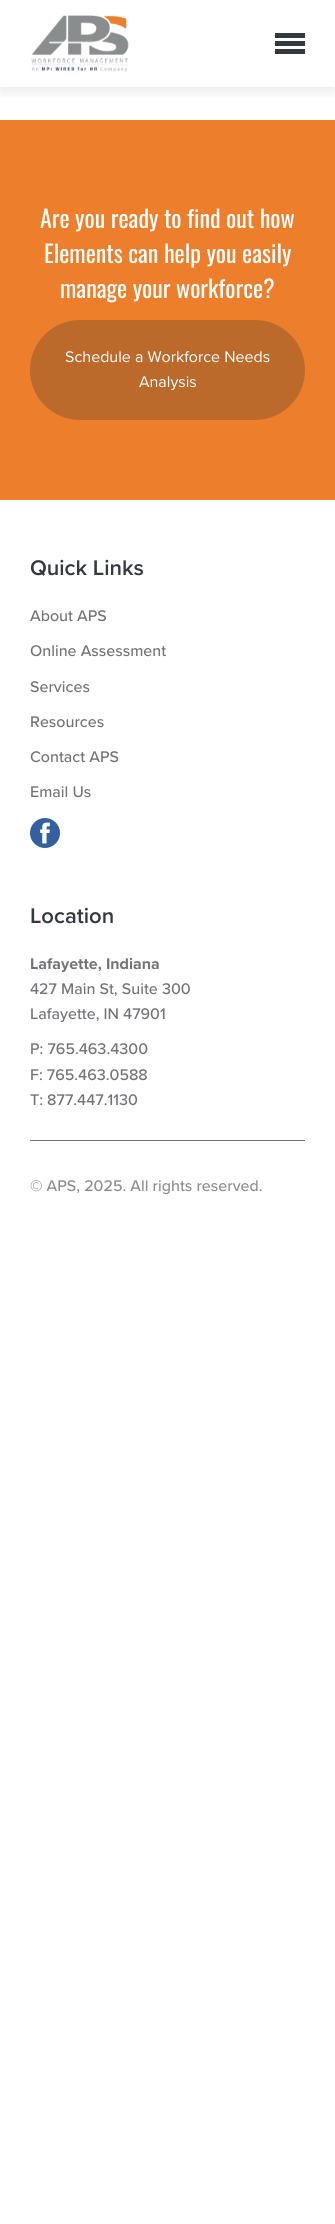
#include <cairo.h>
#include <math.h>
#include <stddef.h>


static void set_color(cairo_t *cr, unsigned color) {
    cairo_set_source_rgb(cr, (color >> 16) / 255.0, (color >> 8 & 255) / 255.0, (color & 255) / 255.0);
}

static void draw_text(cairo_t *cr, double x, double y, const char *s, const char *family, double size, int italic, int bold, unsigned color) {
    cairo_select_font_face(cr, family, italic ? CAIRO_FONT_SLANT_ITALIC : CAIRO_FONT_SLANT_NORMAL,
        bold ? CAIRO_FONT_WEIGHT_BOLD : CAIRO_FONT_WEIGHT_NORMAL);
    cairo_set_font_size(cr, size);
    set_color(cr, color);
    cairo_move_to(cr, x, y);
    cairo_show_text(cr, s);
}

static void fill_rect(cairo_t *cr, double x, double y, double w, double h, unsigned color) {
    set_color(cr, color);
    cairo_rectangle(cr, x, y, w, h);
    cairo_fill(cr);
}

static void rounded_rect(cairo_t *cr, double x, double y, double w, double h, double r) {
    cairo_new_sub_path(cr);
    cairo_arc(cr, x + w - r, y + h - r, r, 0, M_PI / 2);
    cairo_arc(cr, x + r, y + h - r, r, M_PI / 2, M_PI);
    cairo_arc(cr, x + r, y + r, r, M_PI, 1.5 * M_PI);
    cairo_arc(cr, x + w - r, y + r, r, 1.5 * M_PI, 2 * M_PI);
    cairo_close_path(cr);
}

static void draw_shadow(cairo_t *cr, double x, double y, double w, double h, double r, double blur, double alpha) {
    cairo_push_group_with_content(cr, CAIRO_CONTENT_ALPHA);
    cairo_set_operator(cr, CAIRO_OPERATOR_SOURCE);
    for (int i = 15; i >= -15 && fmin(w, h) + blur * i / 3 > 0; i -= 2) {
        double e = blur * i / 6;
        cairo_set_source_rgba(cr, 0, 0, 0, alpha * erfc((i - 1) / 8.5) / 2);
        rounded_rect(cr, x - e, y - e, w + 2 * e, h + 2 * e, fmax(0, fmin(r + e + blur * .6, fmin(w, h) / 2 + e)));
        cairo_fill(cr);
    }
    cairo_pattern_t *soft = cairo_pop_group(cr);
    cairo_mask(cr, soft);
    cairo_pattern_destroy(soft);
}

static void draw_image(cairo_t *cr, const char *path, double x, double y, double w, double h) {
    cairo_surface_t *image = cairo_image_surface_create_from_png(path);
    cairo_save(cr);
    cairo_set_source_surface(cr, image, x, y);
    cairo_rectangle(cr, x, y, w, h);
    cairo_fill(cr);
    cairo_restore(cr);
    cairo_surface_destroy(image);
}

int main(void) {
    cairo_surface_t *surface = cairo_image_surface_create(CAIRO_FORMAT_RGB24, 335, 2224);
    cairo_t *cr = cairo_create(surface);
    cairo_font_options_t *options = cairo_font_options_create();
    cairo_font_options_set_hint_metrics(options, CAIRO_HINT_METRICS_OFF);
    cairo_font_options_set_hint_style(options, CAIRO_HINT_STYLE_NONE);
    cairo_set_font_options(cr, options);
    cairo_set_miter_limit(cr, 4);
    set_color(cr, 0xFFFFFF);
    cairo_paint(cr);
    cairo_save(cr);
    cairo_rectangle(cr, 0, 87, 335, 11);
    cairo_clip(cr);
    set_color(cr, 0x2D2D2D);
    draw_shadow(cr, 0, 5, 335, 87, 0, 7.5, 0.1);
    cairo_restore(cr);
    draw_image(cr, "assets/img1.png", 31, 15, 98, 57);
    fill_rect(cr, 275, 33, 30, 5, 0x333940);
    fill_rect(cr, 275, 41, 30, 5, 0x333940);
    fill_rect(cr, 275, 49, 30, 5, 0x333940);
    fill_rect(cr, 0, 120, 335, 380, 0xEC7E2C);
    draw_text(cr, 40, 228, "Are you ready to find out how", "Oswald", 24, 0, 0, 0xFFFFFF);
    draw_text(cr, 44, 263, "Elements can help you easily", "Oswald", 24, 0, 0, 0xFFFFFF);
    draw_text(cr, 60, 298, "manage your workforce?", "Oswald", 24, 0, 0, 0xFFFFFF);
    set_color(cr, 0xBC6A2C);
    rounded_rect(cr, 30, 320, 275, 100, 50);
    cairo_fill(cr);
    draw_text(cr, 65, 362, "Schedule a Workforce Needs", "Proxima Nova", 16, 0, 0, 0xFFFFFF);
    draw_text(cr, 139, 387, "Analysis", "Proxima Nova", 16, 0, 0, 0xFFFFFF);
    draw_text(cr, 30, 575, "Quick Links", "Proxima Nova SemiBold", 22, 0, 0, 0x333940);
    draw_text(cr, 30, 621, "About APS", "Proxima Nova Medium", 16, 0, 0, 0x717376);
    draw_text(cr, 30, 656, "Online Assessment", "Proxima Nova Medium", 16, 0, 0, 0x717376);
    draw_text(cr, 30, 692, "Services", "Proxima Nova Medium", 16, 0, 0, 0x717376);
    draw_text(cr, 30, 727, "Resources", "Proxima Nova Medium", 16, 0, 0, 0x717376);
    draw_text(cr, 30, 762, "Contact APS", "Proxima Nova Medium", 16, 0, 0, 0x717376);
    draw_text(cr, 30, 797, "Email Us", "Proxima Nova Medium", 16, 0, 0, 0x717376);
    draw_image(cr, "assets/img2.png", 30, 818, 30, 30);
    draw_text(cr, 30, 923, "Location", "Proxima Nova SemiBold", 22, 0, 0, 0x333940);
    draw_text(cr, 30, 969, "Lafayette, Indiana", "Proxima Nova", 16, 0, 1, 0x717376);
    draw_text(cr, 30, 994, "427 Main St, Suite 300", "Proxima Nova Medium", 16, 0, 0, 0x717376);
    draw_text(cr, 30, 1019, "Lafayette, IN 47901", "Proxima Nova Medium", 16, 0, 0, 0x717376);
    draw_text(cr, 30, 1054, "P: 765.463.4300", "Proxima Nova Medium", 16, 0, 0, 0x717376);
    draw_text(cr, 30, 1080, "F: 765.463.0588", "Proxima Nova Medium", 16, 0, 0, 0x717376);
    draw_text(cr, 30, 1105, "T: 877.447.1130", "Proxima Nova Medium", 16, 0, 0, 0x717376);
    fill_rect(cr, 30, 1140, 275, 1, 0x717376);
    draw_text(cr, 30, 1191, "© APS, 2025. All rights reserved.", "Proxima Nova Medium", 16, 0, 0, 0x8D8D8D);
    cairo_surface_write_to_png(surface, "output.png");
    cairo_font_options_destroy(options);
    cairo_destroy(cr);
    cairo_surface_destroy(surface);
    return 0;
}
